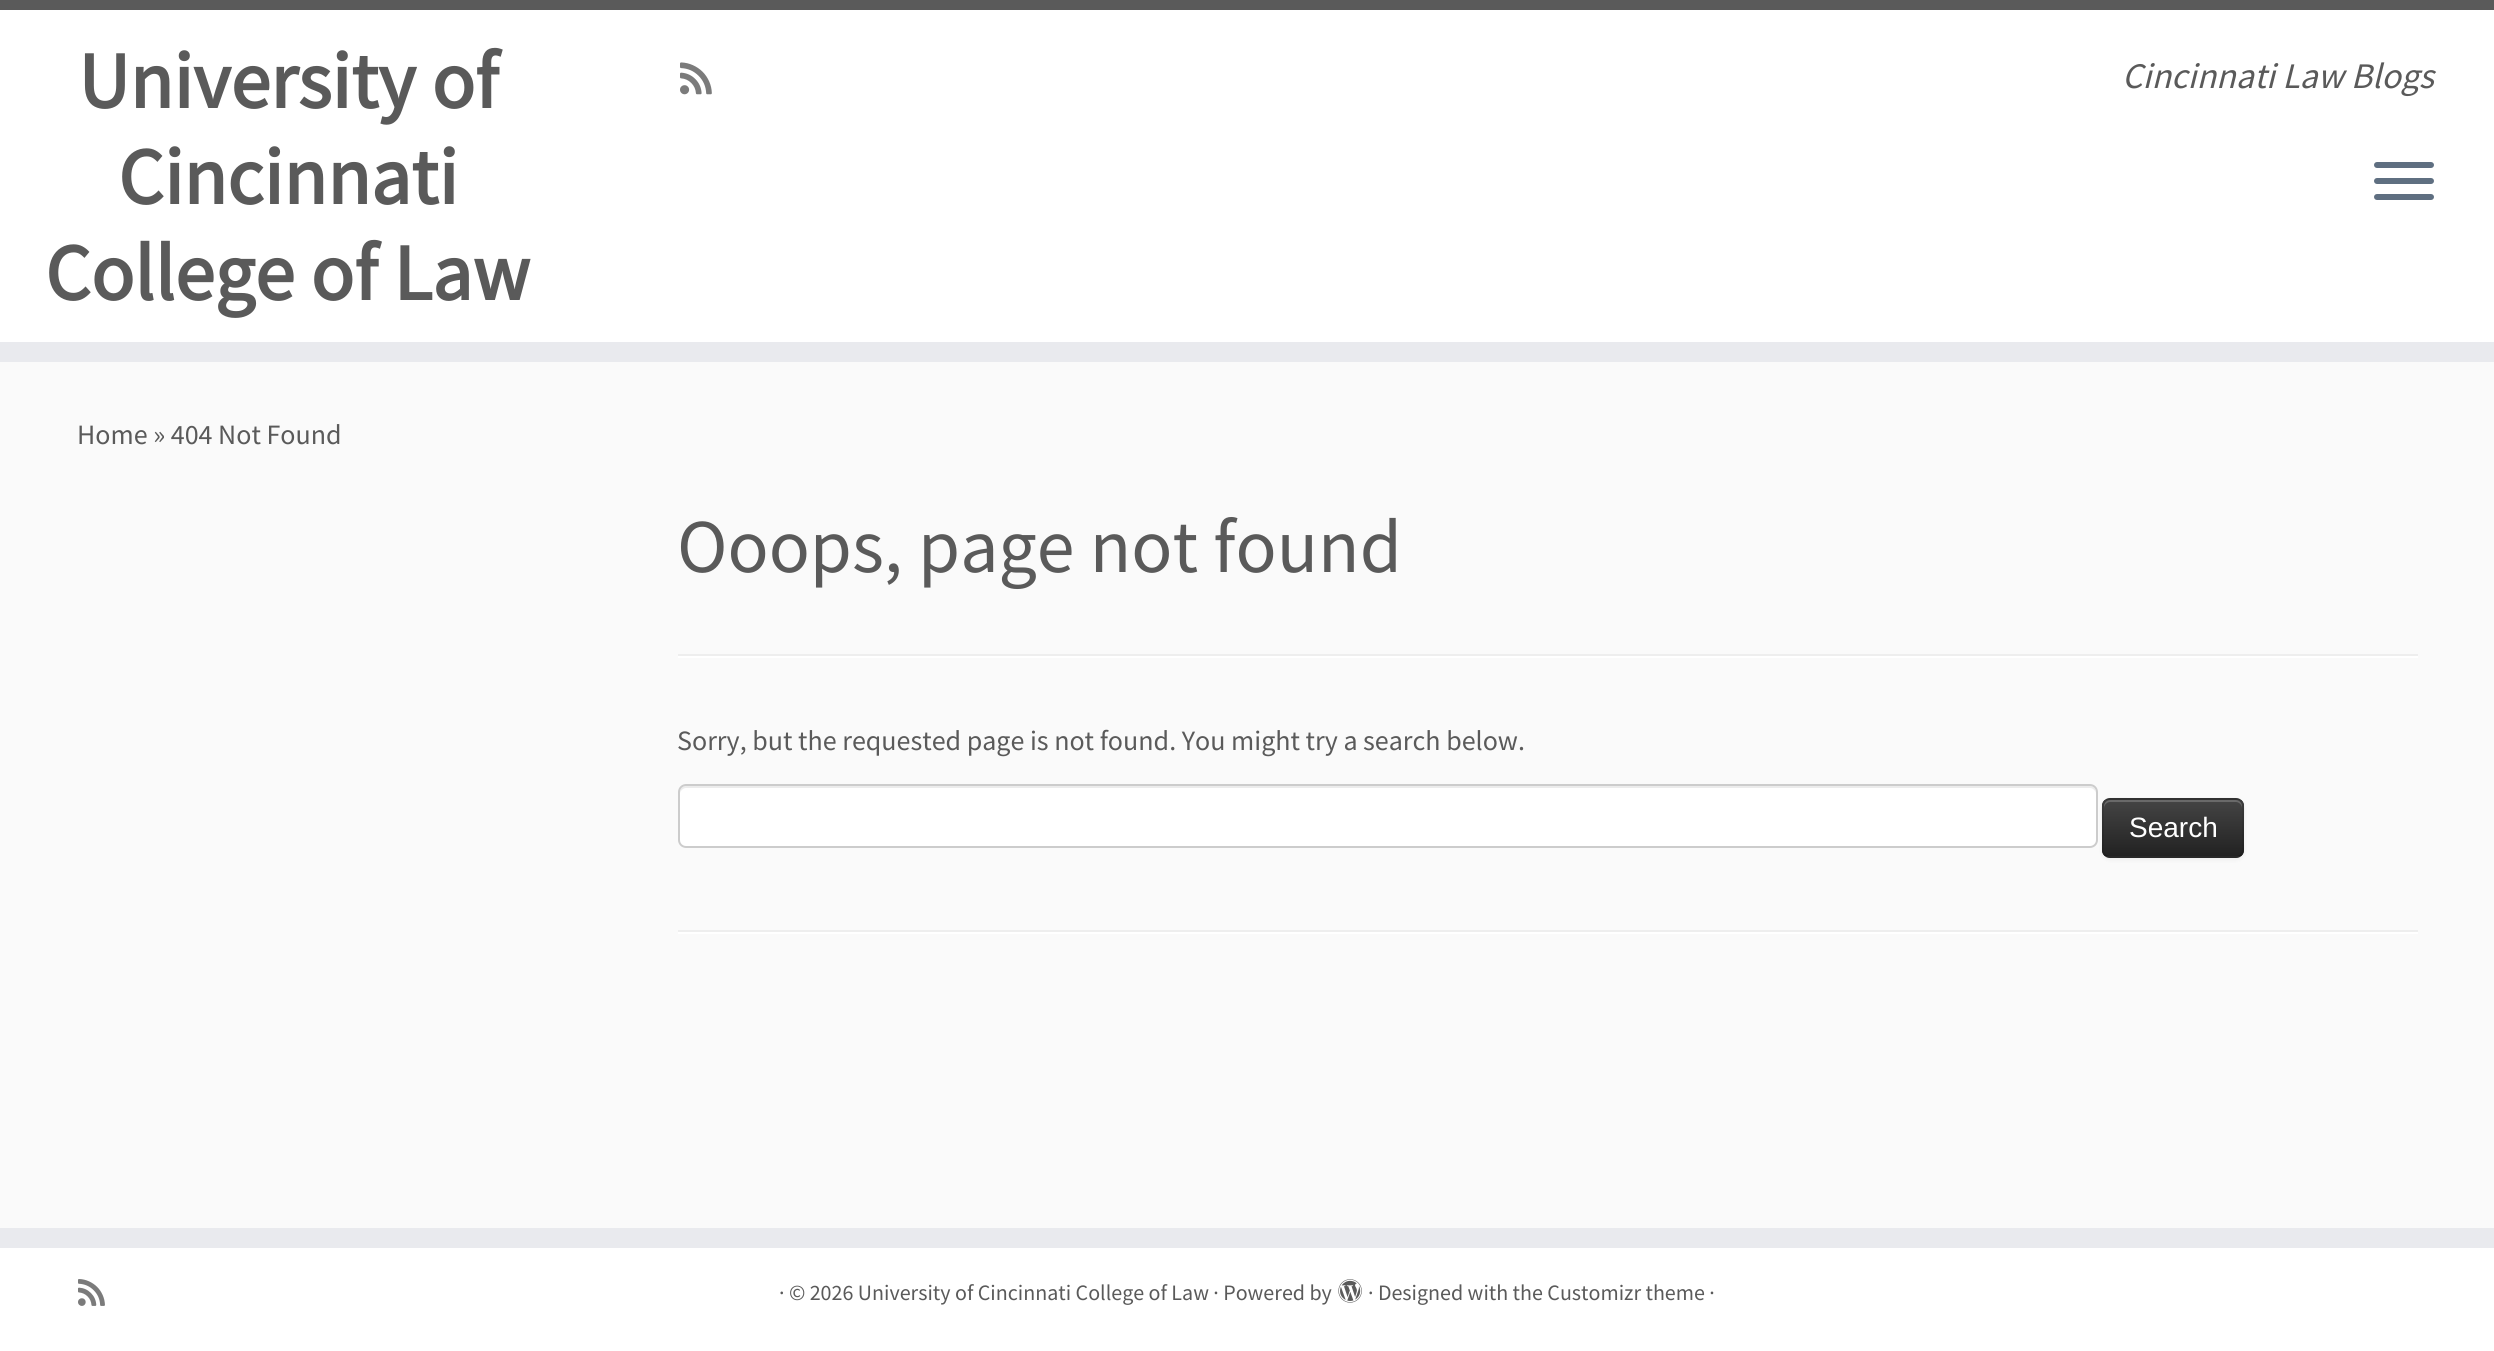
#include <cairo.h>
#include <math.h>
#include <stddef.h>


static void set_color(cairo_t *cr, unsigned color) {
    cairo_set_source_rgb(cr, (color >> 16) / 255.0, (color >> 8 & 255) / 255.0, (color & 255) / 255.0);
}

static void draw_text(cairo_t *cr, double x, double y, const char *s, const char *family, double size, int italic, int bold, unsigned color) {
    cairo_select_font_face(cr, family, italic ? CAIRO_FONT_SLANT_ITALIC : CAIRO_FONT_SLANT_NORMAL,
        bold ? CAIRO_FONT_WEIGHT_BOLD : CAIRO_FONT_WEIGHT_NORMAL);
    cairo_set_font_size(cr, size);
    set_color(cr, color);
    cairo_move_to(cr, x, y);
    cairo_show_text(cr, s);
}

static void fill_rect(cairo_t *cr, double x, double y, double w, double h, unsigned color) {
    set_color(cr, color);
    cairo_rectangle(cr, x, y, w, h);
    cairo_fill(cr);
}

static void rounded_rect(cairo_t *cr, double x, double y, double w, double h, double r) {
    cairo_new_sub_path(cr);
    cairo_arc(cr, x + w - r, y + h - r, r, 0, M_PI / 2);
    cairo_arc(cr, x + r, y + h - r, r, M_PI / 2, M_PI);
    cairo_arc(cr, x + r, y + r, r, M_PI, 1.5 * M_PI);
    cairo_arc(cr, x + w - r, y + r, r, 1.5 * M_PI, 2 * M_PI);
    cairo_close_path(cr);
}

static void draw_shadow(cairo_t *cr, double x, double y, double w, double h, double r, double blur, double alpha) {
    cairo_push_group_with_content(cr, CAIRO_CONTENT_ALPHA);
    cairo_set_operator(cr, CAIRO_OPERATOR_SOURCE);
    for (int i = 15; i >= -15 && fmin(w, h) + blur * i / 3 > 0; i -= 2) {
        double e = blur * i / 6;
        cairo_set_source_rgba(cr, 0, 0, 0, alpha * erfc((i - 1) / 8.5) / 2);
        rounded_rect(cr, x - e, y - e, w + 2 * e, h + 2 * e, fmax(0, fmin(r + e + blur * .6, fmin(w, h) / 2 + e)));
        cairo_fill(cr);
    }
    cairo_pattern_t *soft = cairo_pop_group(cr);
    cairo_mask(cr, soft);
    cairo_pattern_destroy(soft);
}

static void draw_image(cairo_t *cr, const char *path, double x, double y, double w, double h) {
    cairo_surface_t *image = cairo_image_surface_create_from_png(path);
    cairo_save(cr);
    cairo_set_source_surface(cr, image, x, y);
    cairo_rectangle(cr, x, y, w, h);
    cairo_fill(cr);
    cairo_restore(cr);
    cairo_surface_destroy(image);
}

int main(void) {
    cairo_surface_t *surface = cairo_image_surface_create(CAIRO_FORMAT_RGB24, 2494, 1351);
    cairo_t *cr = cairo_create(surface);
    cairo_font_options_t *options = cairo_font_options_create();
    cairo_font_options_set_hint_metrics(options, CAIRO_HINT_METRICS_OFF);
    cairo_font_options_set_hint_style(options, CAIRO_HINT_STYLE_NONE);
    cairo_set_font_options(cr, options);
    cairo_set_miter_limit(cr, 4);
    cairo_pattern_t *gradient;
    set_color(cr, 0xFAFAFA);
    cairo_paint(cr);
    fill_rect(cr, 0, 10, 2494, 332, 0xFFFFFF);
    fill_rect(cr, 0, 0, 2494, 10, 0x5A5A5A);
    fill_rect(cr, 0, 342, 2494, 20, 0xE9EAEE);
    draw_text(cr, 78, 108, "University of", "Source Sans Pro", 80, 0, 1, 0x5A5A5A);
    draw_text(cr, 118, 204, "Cincinnati", "Source Sans Pro", 80, 0, 1, 0x5A5A5A);
    draw_text(cr, 45, 300, "College of Law", "Source Sans Pro", 80, 0, 1, 0x5A5A5A);
    draw_image(cr, "assets/img1.png", 680, 62, 32, 33);
    draw_text(cr, 2122, 88, "Cincinnati Law Blogs", "Source Sans Pro", 36, 1, 0, 0x5A5A5A);
    set_color(cr, 0x5F6F81);
    rounded_rect(cr, 2374, 162, 60, 6, 3);
    cairo_fill(cr);
    rounded_rect(cr, 2374, 178, 60, 6, 3);
    cairo_fill(cr);
    rounded_rect(cr, 2374, 194, 60, 6, 3);
    cairo_fill(cr);
    draw_text(cr, 77, 444, "Home » 404 Not Found", "Source Sans Pro", 28, 0, 0, 0x5A5A5A);
    draw_text(cr, 677, 572, "Ooops, page not found", "Source Sans Pro", 76, 0, 0, 0x5A5A5A);
    fill_rect(cr, 678, 654, 1740, 2, 0xEEEEEE);
    fill_rect(cr, 678, 656, 1740, 2, 0xFFFFFF);
    draw_text(cr, 677, 750, "Sorry, but the requested page is not found. You might try a search below.", "Source Sans Pro", 28, 0, 0, 0x5A5A5A);
    set_color(cr, 0xFFFFFF);
    rounded_rect(cr, 678, 784, 1420, 64, 8);
    cairo_fill(cr);
    set_color(cr, 0xECECEC);
    cairo_new_path(cr);
    cairo_move_to(cr, 686, 788);
    cairo_line_to(cr, 2090, 788);
    cairo_curve_to(cr, 2093, 788, 2096, 791, 2096, 794);
    cairo_curve_to(cr, 2096, 790, 2095, 786, 2090, 786);
    cairo_line_to(cr, 686, 786);
    cairo_curve_to(cr, 681, 786, 680, 790, 680, 794);
    cairo_curve_to(cr, 680, 791, 683, 788, 686, 788);
    cairo_close_path(cr);
    cairo_fill(cr);
    rounded_rect(cr, 679, 785, 1418, 62, 7);
    set_color(cr, 0xCCCCCC);
    cairo_stroke(cr);
    set_color(cr, 0x000000);
    draw_shadow(cr, 2102, 800, 142, 60, 8, 2, 0.05);
    set_color(cr, 0x363636);
    rounded_rect(cr, 2102, 798, 142, 60, 8);
    cairo_fill(cr);
    cairo_save(cr);
    rounded_rect(cr, 2102, 798, 142, 60, 8);
    cairo_clip(cr);
    gradient = cairo_pattern_create_linear(2173, 800, 2173, 856);
    cairo_pattern_add_color_stop_rgba(gradient, 0, 0.267, 0.267, 0.267, 1);
    cairo_pattern_add_color_stop_rgba(gradient, 1, 0.133, 0.133, 0.133, 1);
    cairo_set_source(cr, gradient);
    cairo_pattern_destroy(gradient);
    cairo_rectangle(cr, 2102, 800, 142, 56);
    cairo_fill(cr);
    cairo_restore(cr);
    cairo_set_source_rgba(cr, 1, 1, 1, 0.2);
    cairo_new_path(cr);
    cairo_move_to(cr, 2110, 802);
    cairo_line_to(cr, 2236, 802);
    cairo_curve_to(cr, 2239, 802, 2242, 805, 2242, 808);
    cairo_line_to(cr, 2242, 806);
    cairo_curve_to(cr, 2242, 803, 2239, 800, 2236, 800);
    cairo_line_to(cr, 2110, 800);
    cairo_curve_to(cr, 2107, 800, 2104, 803, 2104, 806);
    cairo_line_to(cr, 2104, 808);
    cairo_curve_to(cr, 2104, 805, 2107, 802, 2110, 802);
    cairo_close_path(cr);
    cairo_fill(cr);
    cairo_new_path(cr);
    cairo_move_to(cr, 2241, 855);
    cairo_curve_to(cr, 2239.5, 856.5, 2238, 857, 2236, 857);
    cairo_line_to(cr, 2110, 857);
    cairo_curve_to(cr, 2108, 857, 2106.5, 856.5, 2105, 855);
    cairo_set_source_rgba(cr, 0, 0, 0, 0.25);
    cairo_stroke(cr);
    cairo_new_path(cr);
    cairo_move_to(cr, 2105, 855);
    cairo_curve_to(cr, 2102, 852, 2103, 846.5, 2103, 842.5);
    cairo_line_to(cr, 2103, 828);
    cairo_curve_to(cr, 2103, 795.5, 2098, 799, 2131, 799);
    cairo_line_to(cr, 2215, 799);
    cairo_curve_to(cr, 2248, 799, 2243, 795.5, 2243, 828);
    cairo_line_to(cr, 2243, 842.5);
    cairo_curve_to(cr, 2243, 846.5, 2244, 852, 2241, 855);
    cairo_set_source_rgba(cr, 0, 0, 0, 0.1);
    cairo_stroke(cr);
    draw_text(cr, 2129, 837, "Search", "Liberation Sans", 28, 0, 0, 0xFFFFFF);
    fill_rect(cr, 678, 930, 1740, 2, 0xEEEEEE);
    fill_rect(cr, 678, 932, 1740, 2, 0xFFFFFF);
    fill_rect(cr, 0, 1228, 2494, 20, 0xE9EAEE);
    fill_rect(cr, 0, 1248, 2494, 103, 0xFFFFFF);
    draw_image(cr, "assets/img2.png", 78, 1279, 27, 27);
    draw_text(cr, 779, 1300, "· © 2026 University of Cincinnati College of Law · Powered by", "Source Sans Pro", 22, 0, 0, 0x5A5A5A);
    draw_image(cr, "assets/img3.png", 1338, 1279, 24, 24);
    draw_text(cr, 1368, 1300, "· Designed with the Customizr theme ·", "Source Sans Pro", 22, 0, 0, 0x5A5A5A);
    cairo_surface_write_to_png(surface, "output.png");
    cairo_font_options_destroy(options);
    cairo_destroy(cr);
    cairo_surface_destroy(surface);
    return 0;
}
